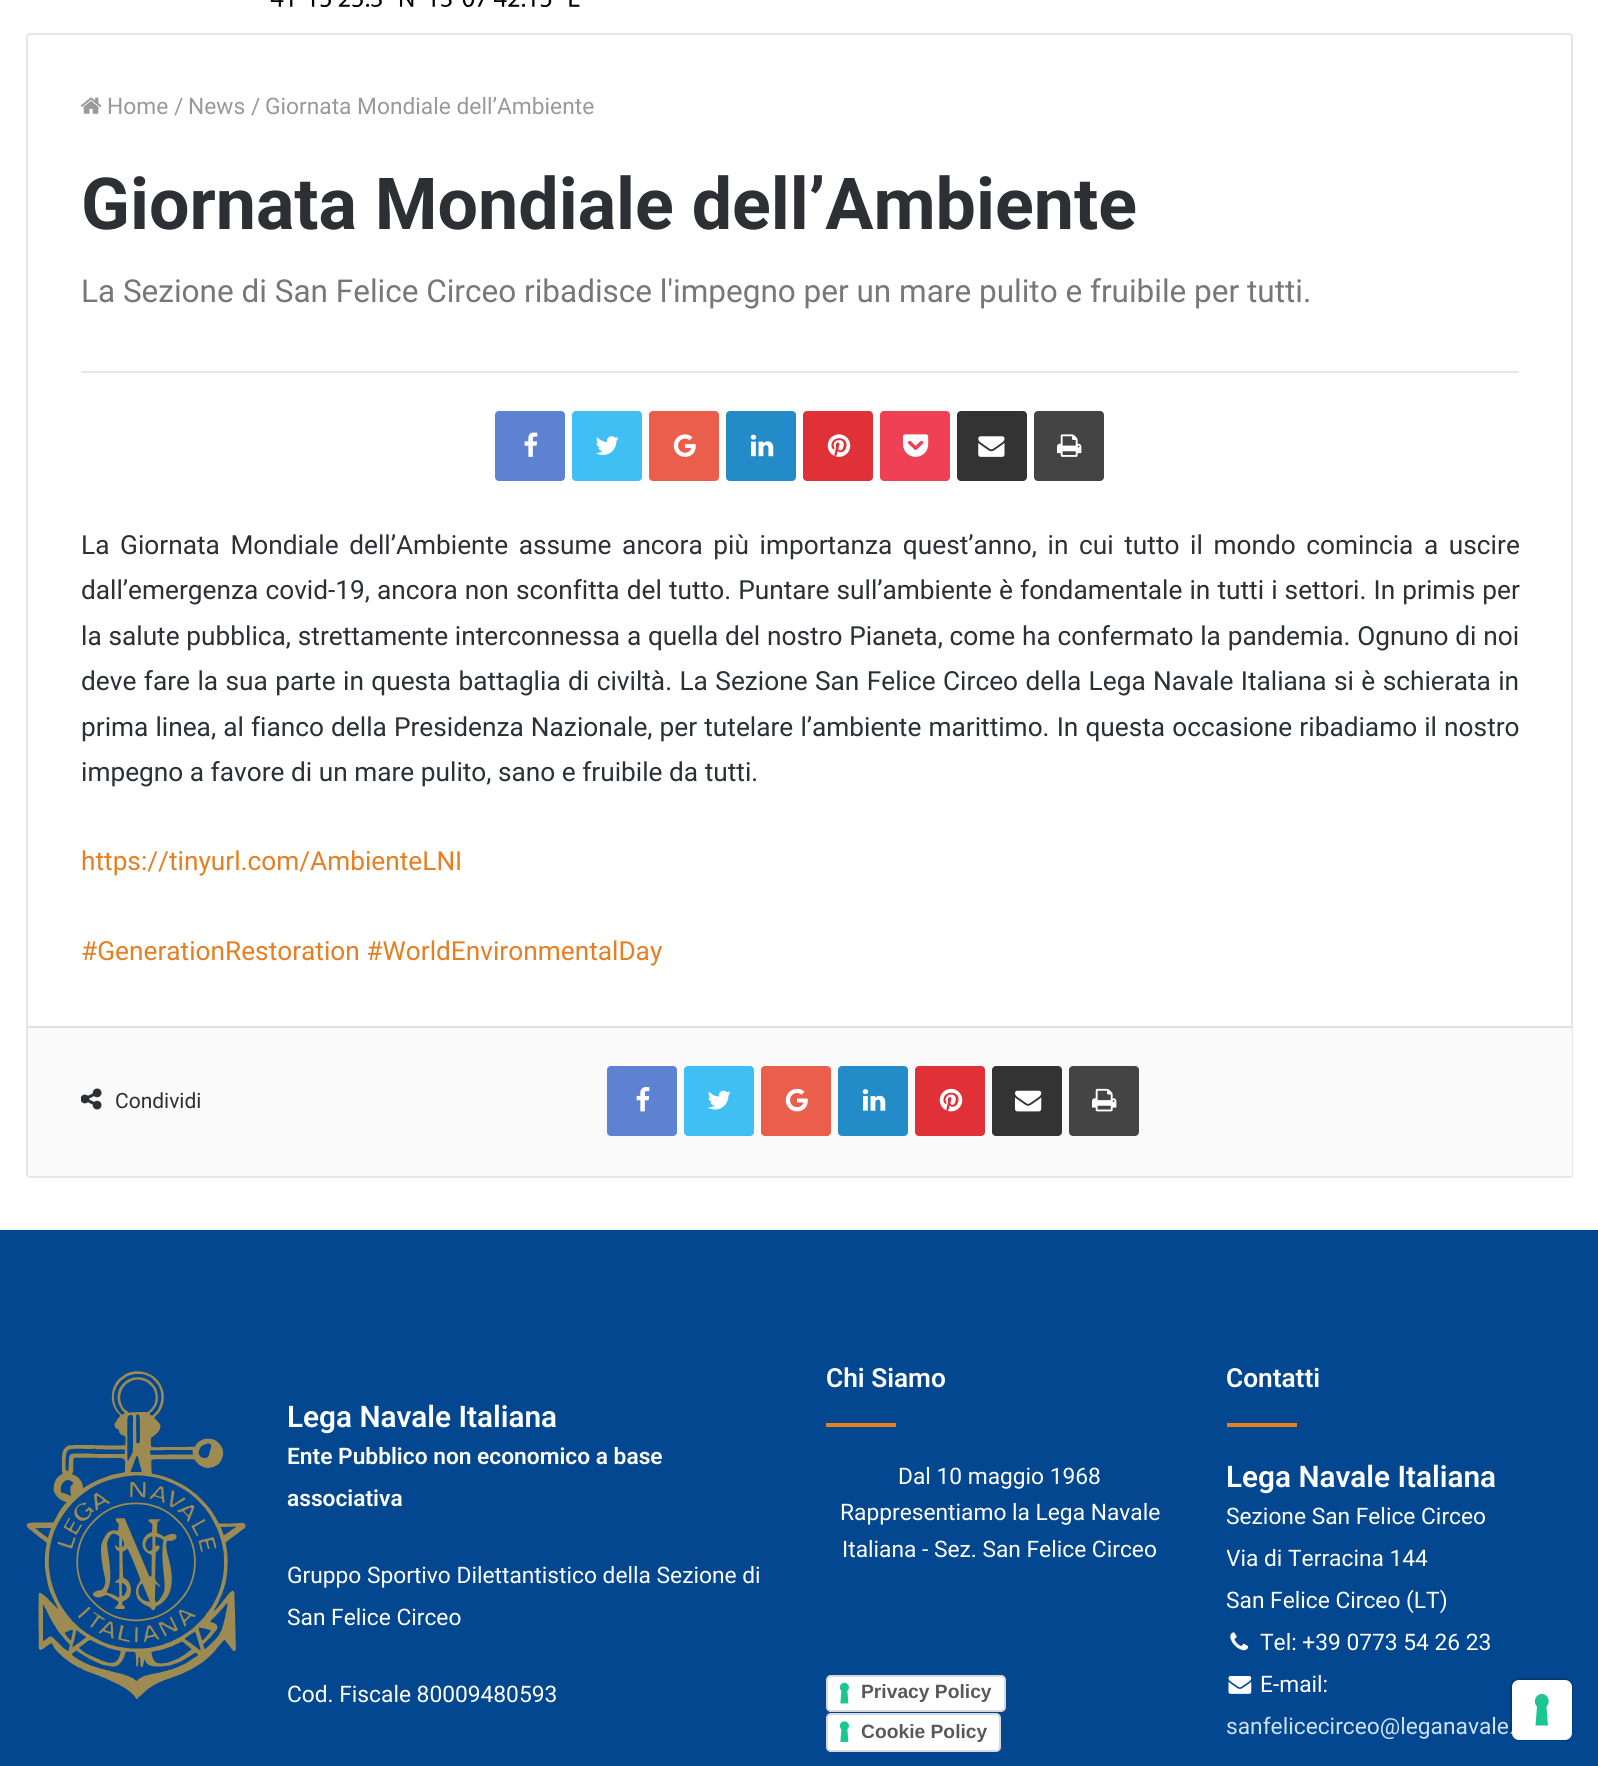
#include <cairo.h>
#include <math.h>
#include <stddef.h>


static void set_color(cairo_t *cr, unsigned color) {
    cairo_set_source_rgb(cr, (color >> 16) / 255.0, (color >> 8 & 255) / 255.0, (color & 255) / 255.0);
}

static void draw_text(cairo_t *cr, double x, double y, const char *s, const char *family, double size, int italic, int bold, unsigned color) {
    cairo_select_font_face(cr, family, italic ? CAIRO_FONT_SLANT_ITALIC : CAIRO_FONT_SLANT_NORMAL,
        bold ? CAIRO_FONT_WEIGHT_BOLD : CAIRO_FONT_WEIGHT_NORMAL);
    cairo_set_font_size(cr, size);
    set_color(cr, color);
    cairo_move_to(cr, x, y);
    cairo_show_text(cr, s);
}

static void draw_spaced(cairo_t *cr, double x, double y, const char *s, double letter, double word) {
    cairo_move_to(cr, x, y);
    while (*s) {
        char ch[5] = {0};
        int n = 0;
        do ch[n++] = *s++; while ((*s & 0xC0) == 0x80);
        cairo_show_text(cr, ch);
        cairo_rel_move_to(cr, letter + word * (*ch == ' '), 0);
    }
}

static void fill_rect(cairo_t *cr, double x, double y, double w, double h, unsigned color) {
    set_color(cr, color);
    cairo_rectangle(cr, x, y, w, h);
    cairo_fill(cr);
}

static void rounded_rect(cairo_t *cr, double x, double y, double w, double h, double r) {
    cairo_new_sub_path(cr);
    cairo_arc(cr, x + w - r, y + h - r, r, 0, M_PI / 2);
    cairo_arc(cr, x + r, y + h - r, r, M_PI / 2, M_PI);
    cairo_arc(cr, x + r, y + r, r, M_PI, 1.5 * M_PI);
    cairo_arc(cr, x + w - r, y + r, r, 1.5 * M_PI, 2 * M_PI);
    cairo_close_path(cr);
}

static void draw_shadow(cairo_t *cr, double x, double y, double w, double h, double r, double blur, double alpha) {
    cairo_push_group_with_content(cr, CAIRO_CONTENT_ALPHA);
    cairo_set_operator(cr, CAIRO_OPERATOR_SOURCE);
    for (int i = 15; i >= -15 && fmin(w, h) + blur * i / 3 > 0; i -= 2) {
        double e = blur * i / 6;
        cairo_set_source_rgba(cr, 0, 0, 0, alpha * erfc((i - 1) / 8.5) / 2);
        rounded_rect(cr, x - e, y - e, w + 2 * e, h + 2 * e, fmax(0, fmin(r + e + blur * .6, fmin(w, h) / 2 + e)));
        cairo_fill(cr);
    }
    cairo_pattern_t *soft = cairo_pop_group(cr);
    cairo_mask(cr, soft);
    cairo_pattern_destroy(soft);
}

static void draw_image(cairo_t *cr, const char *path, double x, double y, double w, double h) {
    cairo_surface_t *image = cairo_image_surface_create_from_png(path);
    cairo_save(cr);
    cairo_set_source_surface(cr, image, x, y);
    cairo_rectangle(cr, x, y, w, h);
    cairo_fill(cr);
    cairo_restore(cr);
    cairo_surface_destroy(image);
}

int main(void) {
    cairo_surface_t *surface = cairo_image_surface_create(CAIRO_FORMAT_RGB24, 1598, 1766);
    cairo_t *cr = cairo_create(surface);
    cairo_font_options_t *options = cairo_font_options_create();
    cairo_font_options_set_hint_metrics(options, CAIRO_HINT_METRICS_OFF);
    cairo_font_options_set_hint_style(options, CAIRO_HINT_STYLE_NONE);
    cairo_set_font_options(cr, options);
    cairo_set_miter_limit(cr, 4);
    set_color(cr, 0xFFFFFF);
    cairo_paint(cr);
    draw_image(cr, "assets/img1.png", 270, 0, 310, 7);
    rounded_rect(cr, 27, 34, 1545, 1143, 3);
    set_color(cr, 0xE6E6E6);
    cairo_stroke(cr);
    draw_image(cr, "assets/img2.png", 80, 97, 22, 17);
    draw_text(cr, 107, 114, "Home", "Roboto", 22.75, 0, 0, 0x999999);
    draw_text(cr, 174, 114, "/", "Roboto", 22.75, 0, 0, 0x999999);
    draw_text(cr, 188, 114, "News", "Roboto", 22.75, 0, 0, 0x999999);
    draw_text(cr, 251, 114, "/", "Roboto", 22.75, 0, 0, 0x999999);
    draw_text(cr, 265, 114, "Giornata Mondiale dell’Ambiente", "Roboto", 22.75, 0, 0, 0x999999);
    draw_text(cr, 81, 229, "Giornata Mondiale dell’Ambiente", "Roboto", 71.75, 0, 1, 0x2C2F34);
    draw_text(cr, 81, 302, "La Sezione di San Felice Circeo ribadisce l'impegno per un mare pulito e fruibile per tutti.", "Roboto", 31.5, 0, 0, 0x777777);
    fill_rect(cr, 81, 371, 1438, 2, 0xE6E6E6);
    set_color(cr, 0x5D82D1);
    rounded_rect(cr, 495, 411, 70, 70, 4);
    cairo_fill(cr);
    draw_image(cr, "assets/img3.png", 524, 432, 14, 25);
    set_color(cr, 0x40BFF5);
    rounded_rect(cr, 572, 411, 70, 70, 4);
    cairo_fill(cr);
    draw_image(cr, "assets/img4.png", 595, 436, 24, 19);
    set_color(cr, 0xEB5E4C);
    rounded_rect(cr, 649, 411, 70, 70, 4);
    cairo_fill(cr);
    draw_image(cr, "assets/img5.png", 673, 434, 23, 23);
    set_color(cr, 0x238CC8);
    rounded_rect(cr, 726, 411, 70, 70, 4);
    cairo_fill(cr);
    draw_image(cr, "assets/img6.png", 750, 434, 24, 23);
    set_color(cr, 0xE13138);
    rounded_rect(cr, 803, 411, 70, 70, 4);
    cairo_fill(cr);
    draw_image(cr, "assets/img7.png", 827, 434, 24, 23);
    set_color(cr, 0xEF4056);
    rounded_rect(cr, 880, 411, 70, 70, 4);
    cairo_fill(cr);
    draw_image(cr, "assets/img8.png", 903, 434, 26, 23);
    set_color(cr, 0x333333);
    rounded_rect(cr, 957, 411, 70, 70, 4);
    cairo_fill(cr);
    draw_image(cr, "assets/img9.png", 978, 436, 27, 21);
    set_color(cr, 0x444444);
    rounded_rect(cr, 1034, 411, 70, 70, 4);
    cairo_fill(cr);
    draw_image(cr, "assets/img10.png", 1057, 434, 25, 23);
    cairo_set_font_size(cr, 26.25);
    set_color(cr, 0x2C2F34);
    draw_spaced(cr, 81, 554, "La Giornata Mondiale dell’Ambiente assume ancora più importanza quest’anno, in cui tutto il mondo comincia a uscire", 0, 4.1);
    draw_spaced(cr, 81, 599, "dall’emergenza covid-19, ancora non sconfitta del tutto. Puntare sull’ambiente è fondamentale in tutti i settori. In primis per", 0, 0.6);
    draw_spaced(cr, 81, 645, "la salute pubblica, strettamente interconnessa a quella del nostro Pianeta, come ha confermato la pandemia. Ognuno di noi", 0, 0.25);
    draw_spaced(cr, 81, 690, "deve fare la sua parte in questa battaglia di civiltà. La Sezione San Felice Circeo della Lega Navale Italiana si è schierata in", 0, 0.9);
    draw_spaced(cr, 81, 736, "prima linea, al fianco della Presidenza Nazionale, per tutelare l’ambiente marittimo. In questa occasione ribadiamo il nostro", 0, 0.6);
    draw_text(cr, 81, 781, "impegno a favore di un mare pulito, sano e fruibile da tutti.", "Roboto", 26.25, 0, 0, 0x2C2F34);
    draw_text(cr, 81, 870, "https://tinyurl.com/AmbienteLNI", "Roboto", 26.25, 0, 0, 0xE67E22);
    draw_text(cr, 81, 960, "#GenerationRestoration #WorldEnvironmentalDay", "Roboto", 26.25, 0, 0, 0xE67E22);
    fill_rect(cr, 28, 1028, 1544, 148, 0xFAFAFA);
    fill_rect(cr, 28, 1026, 1544, 2, 0xE1E1E1);
    draw_image(cr, "assets/img11.png", 81, 1088, 21, 22);
    draw_text(cr, 115, 1108, "Condividi", "Roboto", 21, 0, 0, 0x2C2F34);
    set_color(cr, 0x5D82D1);
    rounded_rect(cr, 607, 1066, 70, 70, 4);
    cairo_fill(cr);
    draw_image(cr, "assets/img12.png", 636, 1087, 14, 25);
    set_color(cr, 0x40BFF5);
    rounded_rect(cr, 684, 1066, 70, 70, 4);
    cairo_fill(cr);
    draw_image(cr, "assets/img13.png", 707, 1090, 24, 20);
    set_color(cr, 0xEB5E4C);
    rounded_rect(cr, 761, 1066, 70, 70, 4);
    cairo_fill(cr);
    draw_image(cr, "assets/img14.png", 785, 1088, 23, 24);
    set_color(cr, 0x238CC8);
    rounded_rect(cr, 838, 1066, 70, 70, 4);
    cairo_fill(cr);
    draw_image(cr, "assets/img15.png", 862, 1089, 24, 22);
    set_color(cr, 0xE13138);
    rounded_rect(cr, 915, 1066, 70, 70, 4);
    cairo_fill(cr);
    draw_image(cr, "assets/img16.png", 939, 1088, 24, 24);
    set_color(cr, 0x333333);
    rounded_rect(cr, 992, 1066, 70, 70, 4);
    cairo_fill(cr);
    draw_image(cr, "assets/img17.png", 1015, 1090, 27, 22);
    set_color(cr, 0x444444);
    rounded_rect(cr, 1069, 1066, 70, 70, 4);
    cairo_fill(cr);
    draw_image(cr, "assets/img18.png", 1092, 1088, 25, 24);
    fill_rect(cr, 0, 1230, 1598, 536, 0x034790);
    draw_image(cr, "assets/img19.png", 26, 1371, 220, 328);
    draw_text(cr, 287, 1427, "Lega Navale Italiana", "Roboto SemiBold", 29.75, 0, 0, 0xFFFFFF);
    draw_text(cr, 287, 1464, "Ente Pubblico non economico a base", "Roboto SemiBold", 22.75, 0, 0, 0xFFFFFF);
    draw_text(cr, 287, 1506, "associativa", "Roboto SemiBold", 22.75, 0, 0, 0xFFFFFF);
    draw_text(cr, 287, 1583, "Gruppo Sportivo Dilettantistico della Sezione di", "Roboto", 22.75, 0, 0, 0xFFFFFF);
    draw_text(cr, 287, 1625, "San Felice Circeo", "Roboto", 22.75, 0, 0, 0xFFFFFF);
    draw_text(cr, 287, 1702, "Cod. Fiscale 80009480593", "Roboto", 22.75, 0, 0, 0xFFFFFF);
    draw_text(cr, 826, 1387, "Chi Siamo", "Roboto SemiBold", 26.25, 0, 0, 0xFFFFFF);
    fill_rect(cr, 826, 1423, 70, 4, 0xE67E22);
    draw_text(cr, 898, 1484, "Dal 10 maggio 1968", "Roboto", 22.75, 0, 0, 0xFFFFFF);
    draw_text(cr, 840, 1520, "Rappresentiamo la Lega Navale", "Roboto", 22.75, 0, 0, 0xFFFFFF);
    draw_text(cr, 842, 1557, "Italiana - Sez. San Felice Circeo", "Roboto", 22.75, 0, 0, 0xFFFFFF);
    set_color(cr, 0x000000);
    draw_shadow(cr, 828, 1678, 177, 34, 4, 1, 0.15);
    set_color(cr, 0xFFFFFF);
    rounded_rect(cr, 826, 1675, 180, 37, 5);
    cairo_fill(cr);
    draw_image(cr, "assets/img20.png", 839, 1682, 10, 22);
    rounded_rect(cr, 827, 1676, 178, 35, 4);
    cairo_set_source_rgba(cr, 0, 0, 0, 0.15);
    cairo_stroke(cr);
    draw_text(cr, 861, 1698, "Privacy Policy", "Liberation Sans", 19.25, 0, 1, 0x595959);
    set_color(cr, 0x000000);
    draw_shadow(cr, 828, 1717, 171, 35, 4, 1, 0.15);
    set_color(cr, 0xFFFFFF);
    rounded_rect(cr, 826, 1713, 175, 39, 5);
    cairo_fill(cr);
    draw_image(cr, "assets/img21.png", 839, 1721, 10, 21);
    rounded_rect(cr, 827, 1714, 173, 37, 4);
    cairo_set_source_rgba(cr, 0, 0, 0, 0.15);
    cairo_stroke(cr);
    draw_text(cr, 861, 1738, "Cookie Policy", "Liberation Sans", 19.25, 0, 1, 0x595959);
    draw_text(cr, 1226, 1387, "Contatti", "Roboto SemiBold", 26.25, 0, 0, 0xFFFFFF);
    fill_rect(cr, 1227, 1423, 70, 4, 0xE67E22);
    draw_text(cr, 1226, 1487, "Lega Navale Italiana", "Roboto SemiBold", 29.75, 0, 0, 0xFFFFFF);
    draw_text(cr, 1226, 1524, "Sezione San Felice Circeo", "Roboto", 22.75, 0, 0, 0xFFFFFF);
    cairo_save(cr);
    cairo_rectangle(cr, 1227, 1458, 346, 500);
    cairo_clip(cr);
    draw_text(cr, 1226, 1566, "Via di Terracina 144", "Roboto", 22.75, 0, 0, 0xFFFFFF);
    cairo_restore(cr);
    draw_text(cr, 1226, 1608, "San Felice Circeo (LT)", "Roboto", 22.75, 0, 0, 0xFFFFFF);
    draw_image(cr, "assets/img22.png", 1230, 1632, 19, 19);
    draw_text(cr, 1260, 1650, "Tel: +39 0773 54 26 23", "Roboto", 22.75, 0, 0, 0xFFFFFF);
    draw_image(cr, "assets/img23.png", 1228, 1676, 24, 18);
    draw_text(cr, 1260, 1692, "E-mail:", "Roboto", 22.75, 0, 0, 0xFFFFFF);
    draw_text(cr, 1226, 1734, "sanfelicecirceo@leganavale.", "Roboto", 22.75, 0, 0, 0xCDE2F4);
    rounded_rect(cr, 1511, 1679, 61, 61, 8);
    cairo_set_source_rgba(cr, 0, 0, 0, 0.15);
    cairo_stroke(cr);
    set_color(cr, 0xFFFFFF);
    rounded_rect(cr, 1512, 1680, 60, 60, 7);
    cairo_fill(cr);
    set_color(cr, 0x1CC691);
    cairo_set_fill_rule(cr, CAIRO_FILL_RULE_EVEN_ODD);
    cairo_new_path(cr);
    cairo_move_to(cr, 1542, 1694);
    cairo_curve_to(cr, 1548, 1694, 1551, 1702, 1546.5, 1706.5);
    cairo_line_to(cr, 1548, 1725.5);
    cairo_line_to(cr, 1535.5, 1725.5);
    cairo_line_to(cr, 1537, 1706.5);
    cairo_curve_to(cr, 1532.5, 1702, 1535.5, 1694, 1542, 1694);
    cairo_close_path(cr);
    cairo_fill(cr);
    cairo_surface_write_to_png(surface, "output.png");
    cairo_font_options_destroy(options);
    cairo_destroy(cr);
    cairo_surface_destroy(surface);
    return 0;
}
